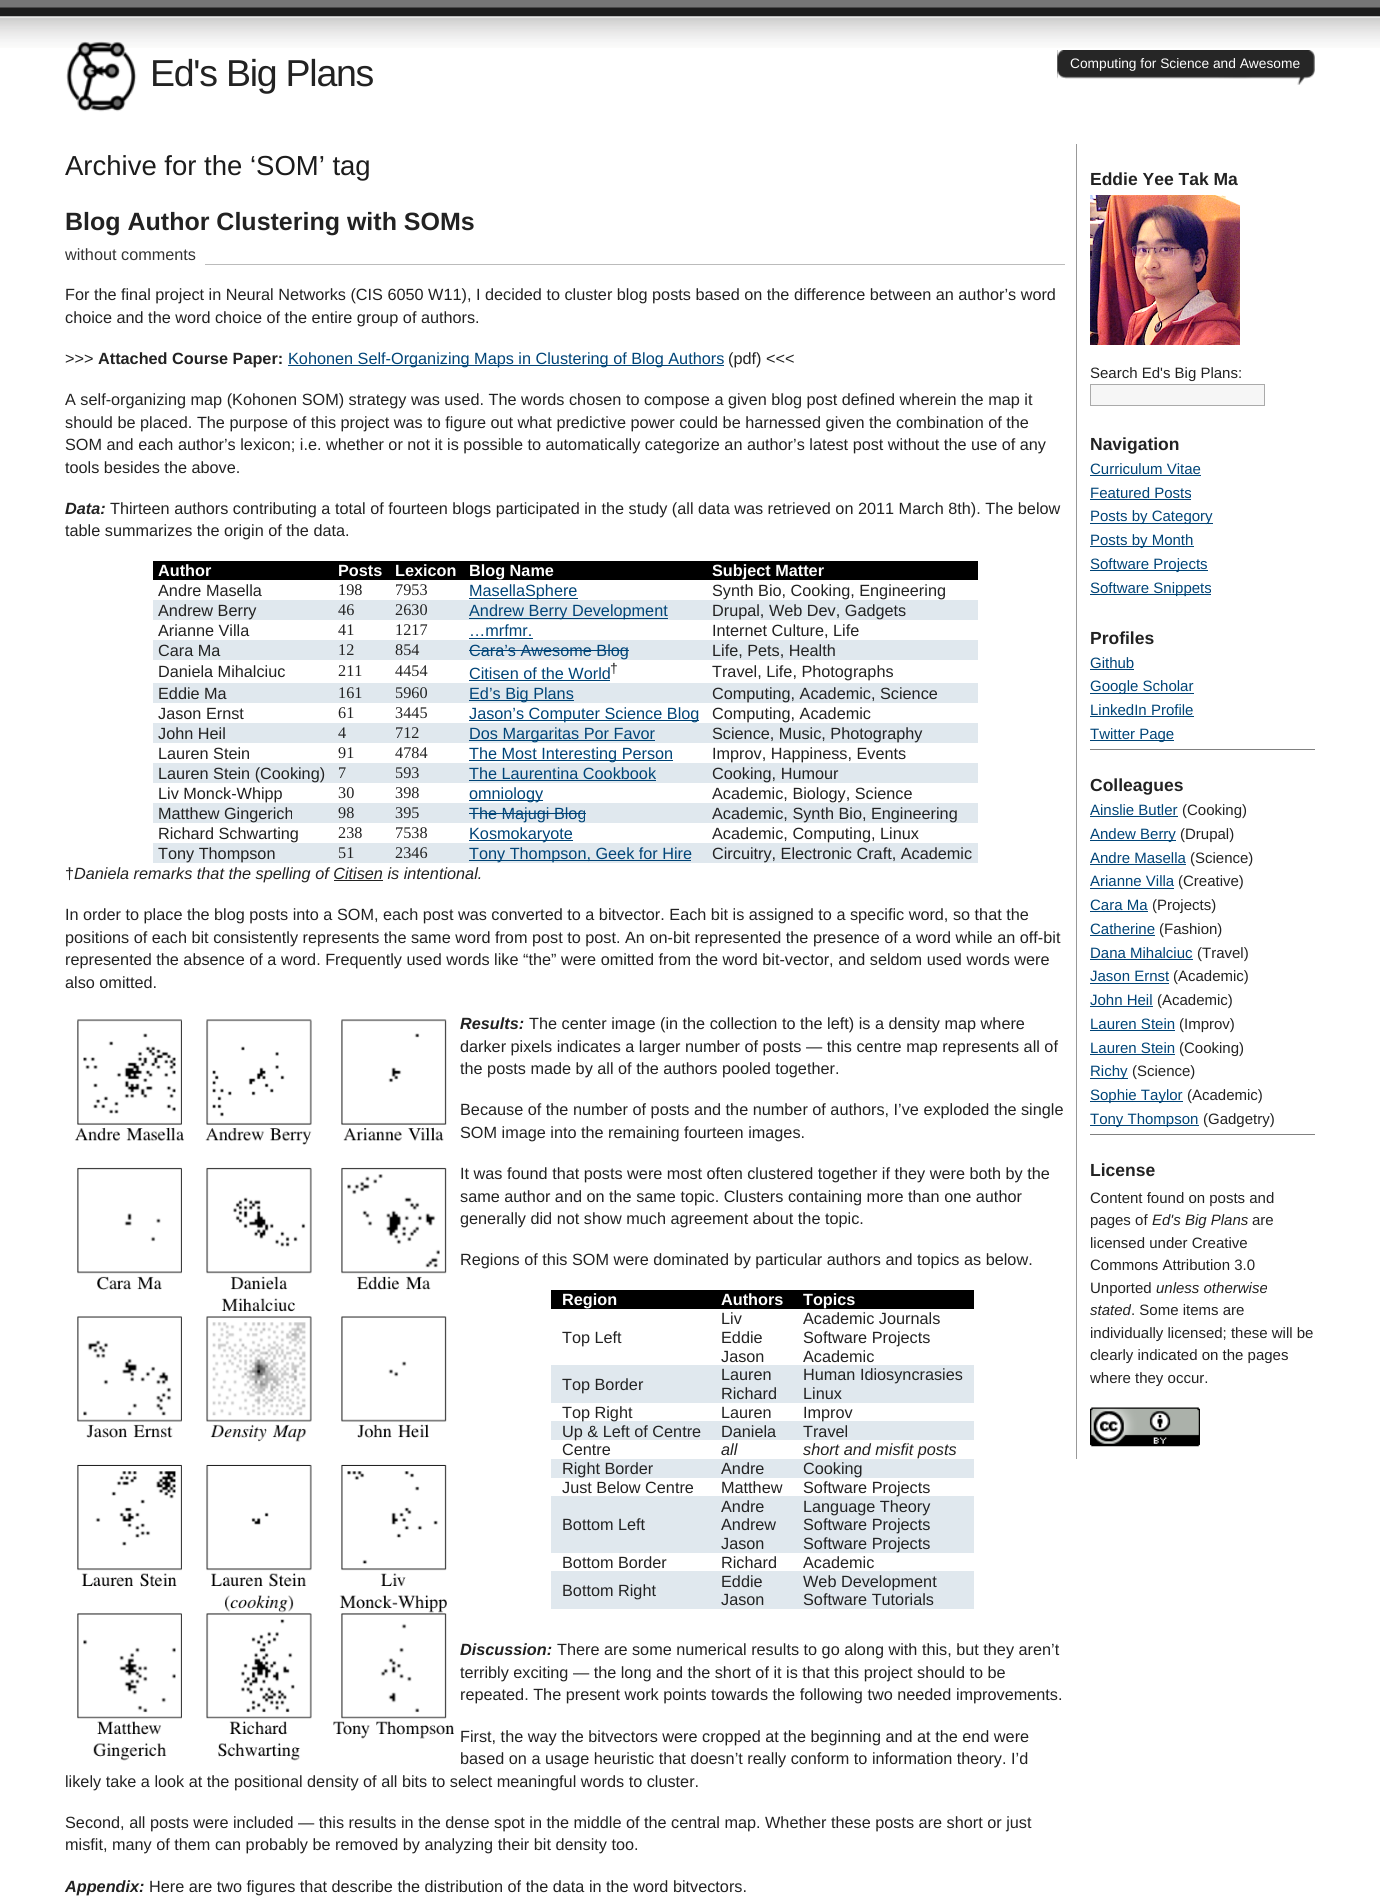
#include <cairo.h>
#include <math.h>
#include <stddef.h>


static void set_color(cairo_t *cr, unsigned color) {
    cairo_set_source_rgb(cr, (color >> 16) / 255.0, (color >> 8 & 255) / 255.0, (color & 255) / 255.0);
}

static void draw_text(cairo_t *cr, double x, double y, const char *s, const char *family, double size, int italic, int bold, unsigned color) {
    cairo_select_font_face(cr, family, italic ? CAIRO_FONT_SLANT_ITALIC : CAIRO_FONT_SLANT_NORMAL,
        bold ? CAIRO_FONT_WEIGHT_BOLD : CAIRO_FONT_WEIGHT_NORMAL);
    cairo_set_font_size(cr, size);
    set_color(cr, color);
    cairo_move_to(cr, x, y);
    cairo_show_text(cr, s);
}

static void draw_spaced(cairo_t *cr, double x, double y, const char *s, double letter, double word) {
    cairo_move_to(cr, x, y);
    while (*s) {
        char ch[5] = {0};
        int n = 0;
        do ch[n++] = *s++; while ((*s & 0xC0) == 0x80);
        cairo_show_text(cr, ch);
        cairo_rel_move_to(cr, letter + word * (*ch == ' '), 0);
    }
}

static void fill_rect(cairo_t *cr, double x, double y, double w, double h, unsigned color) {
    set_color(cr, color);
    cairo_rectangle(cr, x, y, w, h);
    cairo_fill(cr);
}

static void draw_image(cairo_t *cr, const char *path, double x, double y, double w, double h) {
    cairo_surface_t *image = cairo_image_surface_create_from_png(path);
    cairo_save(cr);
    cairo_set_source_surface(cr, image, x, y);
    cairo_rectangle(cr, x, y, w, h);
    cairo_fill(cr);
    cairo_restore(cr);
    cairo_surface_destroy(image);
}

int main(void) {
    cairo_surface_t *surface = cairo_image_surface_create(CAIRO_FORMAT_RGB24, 1380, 1899);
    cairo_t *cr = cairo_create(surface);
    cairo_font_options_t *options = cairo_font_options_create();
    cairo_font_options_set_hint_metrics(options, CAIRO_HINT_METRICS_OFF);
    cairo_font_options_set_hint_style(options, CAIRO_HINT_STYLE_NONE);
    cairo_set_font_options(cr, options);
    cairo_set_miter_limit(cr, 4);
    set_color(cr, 0xFFFFFF);
    cairo_paint(cr);
    draw_image(cr, "assets/img1.png", 0, 0, 1380, 48);
    draw_image(cr, "assets/img2.png", 66, 41, 71, 71);
    cairo_select_font_face(cr, "Liberation Sans", CAIRO_FONT_SLANT_NORMAL, CAIRO_FONT_WEIGHT_NORMAL);
    cairo_set_font_size(cr, 37.5);
    set_color(cr, 0x222222);
    draw_spaced(cr, 150, 86, "Ed's Big Plans", -1.25, 0);
    draw_image(cr, "assets/img3.png", 1057, 50, 258, 35);
    draw_image(cr, "assets/img4.png", 1057, 50, 9, 29);
    draw_text(cr, 1070, 68, "Computing for Science and Awesome", "Liberation Sans", 13.75, 0, 0, 0xFFFFFF);
    draw_text(cr, 65, 175, "Archive for the ‘SOM’ tag", "Liberation Sans", 27.5, 0, 0, 0x1C1C1C);
    draw_text(cr, 65, 230, "Blog Author Clustering with SOMs", "Liberation Sans", 25, 0, 1, 0x222222);
    fill_rect(cr, 205, 264, 860, 1, 0xBBBBBB);
    draw_text(cr, 65, 260, "without comments", "Liberation Sans", 16.25, 0, 0, 0x333333);
    draw_text(cr, 65, 300, "For the final project in Neural Networks (CIS 6050 W11), I decided to cluster blog posts based on the difference between an author’s word", "Liberation Sans", 16.25, 0, 0, 0x222222);
    draw_text(cr, 65, 323, "choice and the word choice of the entire group of authors.", "Liberation Sans", 16.25, 0, 0, 0x222222);
    draw_text(cr, 65, 364, ">>>", "Liberation Sans", 16.25, 0, 0, 0x222222);
    draw_text(cr, 98, 364, "Attached Course Paper:", "Liberation Sans", 16.25, 0, 1, 0x222222);
    fill_rect(cr, 288, 365, 436, 1, 0x004477);
    draw_text(cr, 288, 364, "Kohonen Self-Organizing Maps in Clustering of Blog Authors", "Liberation Sans", 16.25, 0, 0, 0x004477);
    draw_text(cr, 728, 364, "(pdf) <<<", "Liberation Sans", 16.25, 0, 0, 0x222222);
    draw_text(cr, 65, 405, "A self-organizing map (Kohonen SOM) strategy was used. The words chosen to compose a given blog post defined wherein the map it", "Liberation Sans", 16.25, 0, 0, 0x222222);
    draw_text(cr, 65, 428, "should be placed. The purpose of this project was to figure out what predictive power could be harnessed given the combination of the", "Liberation Sans", 16.25, 0, 0, 0x222222);
    draw_text(cr, 65, 450, "SOM and each author’s lexicon; i.e. whether or not it is possible to automatically categorize an author’s latest post without the use of any", "Liberation Sans", 16.25, 0, 0, 0x222222);
    draw_text(cr, 65, 473, "tools besides the above.", "Liberation Sans", 16.25, 0, 0, 0x222222);
    draw_text(cr, 65, 514, "Data:", "Liberation Sans", 16.25, 1, 1, 0x222222);
    draw_text(cr, 110, 514, "Thirteen authors contributing a total of fourteen blogs participated in the study (all data was retrieved on 2011 March 8th). The below", "Liberation Sans", 16.25, 0, 0, 0x222222);
    draw_text(cr, 65, 536, "table summarizes the origin of the data.", "Liberation Sans", 16.25, 0, 0, 0x222222);
    fill_rect(cr, 153, 561, 825, 19, 0x000000);
    draw_text(cr, 158, 576, "Author", "Liberation Sans", 16.25, 0, 1, 0xFFFFFF);
    draw_text(cr, 338, 576, "Posts", "Liberation Sans", 16.25, 0, 1, 0xFFFFFF);
    draw_text(cr, 395, 576, "Lexicon", "Liberation Sans", 16.25, 0, 1, 0xFFFFFF);
    draw_text(cr, 469, 576, "Blog Name", "Liberation Sans", 16.25, 0, 1, 0xFFFFFF);
    draw_text(cr, 712, 576, "Subject Matter", "Liberation Sans", 16.25, 0, 1, 0xFFFFFF);
    draw_text(cr, 158, 596, "Andre Masella", "Liberation Sans", 16.25, 0, 0, 0x222222);
    draw_text(cr, 338, 595, "198", "Liberation Serif", 16.25, 0, 0, 0x222222);
    draw_text(cr, 395, 595, "7953", "Liberation Serif", 16.25, 0, 0, 0x222222);
    fill_rect(cr, 469, 598, 109, 1, 0x004477);
    draw_text(cr, 469, 596, "MasellaSphere", "Liberation Sans", 16.25, 0, 0, 0x004477);
    draw_text(cr, 712, 596, "Synth Bio, Cooking, Engineering", "Liberation Sans", 16.25, 0, 0, 0x222222);
    fill_rect(cr, 153, 600, 825, 20, 0xE0E8EE);
    draw_text(cr, 158, 616, "Andrew Berry", "Liberation Sans", 16.25, 0, 0, 0x222222);
    draw_text(cr, 338, 615, "46", "Liberation Serif", 16.25, 0, 0, 0x222222);
    draw_text(cr, 395, 615, "2630", "Liberation Serif", 16.25, 0, 0, 0x222222);
    fill_rect(cr, 469, 618, 199, 1, 0x004477);
    draw_text(cr, 469, 616, "Andrew Berry Development", "Liberation Sans", 16.25, 0, 0, 0x004477);
    draw_text(cr, 712, 616, "Drupal, Web Dev, Gadgets", "Liberation Sans", 16.25, 0, 0, 0x222222);
    draw_text(cr, 158, 636, "Arianne Villa", "Liberation Sans", 16.25, 0, 0, 0x222222);
    draw_text(cr, 338, 635, "41", "Liberation Serif", 16.25, 0, 0, 0x222222);
    draw_text(cr, 395, 635, "1217", "Liberation Serif", 16.25, 0, 0, 0x222222);
    draw_text(cr, 469, 636, "…mrfmr.", "Liberation Sans", 16.25, 0, 0, 0x004477);
    fill_rect(cr, 469, 638, 64, 1, 0x004477);
    draw_text(cr, 712, 636, "Internet Culture, Life", "Liberation Sans", 16.25, 0, 0, 0x222222);
    fill_rect(cr, 153, 640, 825, 20, 0xE0E8EE);
    draw_text(cr, 158, 656, "Cara Ma", "Liberation Sans", 16.25, 0, 0, 0x222222);
    draw_text(cr, 338, 655, "12", "Liberation Serif", 16.25, 0, 0, 0x222222);
    draw_text(cr, 395, 655, "854", "Liberation Serif", 16.25, 0, 0, 0x222222);
    draw_text(cr, 469, 656, "Cara’s Awesome Blog", "Liberation Sans", 16.25, 0, 0, 0x004477);
    fill_rect(cr, 469, 650, 160, 1, 0x004477);
    draw_text(cr, 712, 656, "Life, Pets, Health", "Liberation Sans", 16.25, 0, 0, 0x222222);
    draw_text(cr, 158, 677, "Daniela Mihalciuc", "Liberation Sans", 16.25, 0, 0, 0x222222);
    draw_text(cr, 338, 676, "211", "Liberation Serif", 16.25, 0, 0, 0x222222);
    draw_text(cr, 395, 676, "4454", "Liberation Serif", 16.25, 0, 0, 0x222222);
    draw_text(cr, 469, 679, "Citisen of the World", "Liberation Sans", 16.25, 0, 0, 0x004477);
    fill_rect(cr, 469, 680, 141, 1, 0x004477);
    draw_text(cr, 610, 673, "†", "Liberation Sans", 14, 0, 0, 0x222222);
    draw_text(cr, 712, 677, "Travel, Life, Photographs", "Liberation Sans", 16.25, 0, 0, 0x222222);
    fill_rect(cr, 153, 683, 825, 20, 0xE0E8EE);
    draw_text(cr, 158, 699, "Eddie Ma", "Liberation Sans", 16.25, 0, 0, 0x222222);
    draw_text(cr, 338, 698, "161", "Liberation Serif", 16.25, 0, 0, 0x222222);
    draw_text(cr, 395, 698, "5960", "Liberation Serif", 16.25, 0, 0, 0x222222);
    fill_rect(cr, 469, 700, 105, 1, 0x004477);
    draw_text(cr, 469, 699, "Ed’s Big Plans", "Liberation Sans", 16.25, 0, 0, 0x004477);
    draw_text(cr, 712, 699, "Computing, Academic, Science", "Liberation Sans", 16.25, 0, 0, 0x222222);
    draw_text(cr, 158, 719, "Jason Ernst", "Liberation Sans", 16.25, 0, 0, 0x222222);
    draw_text(cr, 338, 718, "61", "Liberation Serif", 16.25, 0, 0, 0x222222);
    draw_text(cr, 395, 718, "3445", "Liberation Serif", 16.25, 0, 0, 0x222222);
    fill_rect(cr, 469, 720, 230, 1, 0x004477);
    draw_text(cr, 469, 719, "Jason’s Computer Science Blog", "Liberation Sans", 16.25, 0, 0, 0x004477);
    draw_text(cr, 712, 719, "Computing, Academic", "Liberation Sans", 16.25, 0, 0, 0x222222);
    fill_rect(cr, 153, 723, 825, 20, 0xE0E8EE);
    draw_text(cr, 158, 739, "John Heil", "Liberation Sans", 16.25, 0, 0, 0x222222);
    draw_text(cr, 338, 738, "4", "Liberation Serif", 16.25, 0, 0, 0x222222);
    draw_text(cr, 395, 738, "712", "Liberation Serif", 16.25, 0, 0, 0x222222);
    fill_rect(cr, 469, 740, 186, 1, 0x004477);
    draw_text(cr, 469, 739, "Dos Margaritas Por Favor", "Liberation Sans", 16.25, 0, 0, 0x004477);
    draw_text(cr, 712, 739, "Science, Music, Photography", "Liberation Sans", 16.25, 0, 0, 0x222222);
    draw_text(cr, 158, 759, "Lauren Stein", "Liberation Sans", 16.25, 0, 0, 0x222222);
    draw_text(cr, 338, 758, "91", "Liberation Serif", 16.25, 0, 0, 0x222222);
    draw_text(cr, 395, 758, "4784", "Liberation Serif", 16.25, 0, 0, 0x222222);
    fill_rect(cr, 469, 760, 204, 1, 0x004477);
    draw_text(cr, 469, 759, "The Most Interesting Person", "Liberation Sans", 16.25, 0, 0, 0x004477);
    draw_text(cr, 712, 759, "Improv, Happiness, Events", "Liberation Sans", 16.25, 0, 0, 0x222222);
    fill_rect(cr, 153, 763, 825, 20, 0xE0E8EE);
    draw_text(cr, 158, 779, "Lauren Stein (Cooking)", "Liberation Sans", 16.25, 0, 0, 0x222222);
    draw_text(cr, 338, 778, "7", "Liberation Serif", 16.25, 0, 0, 0x222222);
    draw_text(cr, 395, 778, "593", "Liberation Serif", 16.25, 0, 0, 0x222222);
    draw_text(cr, 469, 779, "The Laurentina Cookbook", "Liberation Sans", 16.25, 0, 0, 0x004477);
    fill_rect(cr, 469, 780, 187, 1, 0x004477);
    draw_text(cr, 712, 779, "Cooking, Humour", "Liberation Sans", 16.25, 0, 0, 0x222222);
    draw_text(cr, 158, 799, "Liv Monck-Whipp", "Liberation Sans", 16.25, 0, 0, 0x222222);
    draw_text(cr, 338, 798, "30", "Liberation Serif", 16.25, 0, 0, 0x222222);
    draw_text(cr, 395, 798, "398", "Liberation Serif", 16.25, 0, 0, 0x222222);
    fill_rect(cr, 469, 800, 74, 1, 0x004477);
    draw_text(cr, 469, 799, "omniology", "Liberation Sans", 16.25, 0, 0, 0x004477);
    draw_text(cr, 712, 799, "Academic, Biology, Science", "Liberation Sans", 16.25, 0, 0, 0x222222);
    fill_rect(cr, 153, 803, 825, 20, 0xE0E8EE);
    draw_text(cr, 158, 819, "Matthew Gingerich", "Liberation Sans", 16.25, 0, 0, 0x222222);
    draw_text(cr, 338, 818, "98", "Liberation Serif", 16.25, 0, 0, 0x222222);
    draw_text(cr, 395, 818, "395", "Liberation Serif", 16.25, 0, 0, 0x222222);
    draw_text(cr, 469, 819, "The Majugi Blog", "Liberation Sans", 16.25, 0, 0, 0x004477);
    fill_rect(cr, 469, 813, 117, 1, 0x004477);
    draw_text(cr, 712, 819, "Academic, Synth Bio, Engineering", "Liberation Sans", 16.25, 0, 0, 0x222222);
    draw_text(cr, 158, 839, "Richard Schwarting", "Liberation Sans", 16.25, 0, 0, 0x222222);
    draw_text(cr, 338, 838, "238", "Liberation Serif", 16.25, 0, 0, 0x222222);
    draw_text(cr, 395, 838, "7538", "Liberation Serif", 16.25, 0, 0, 0x222222);
    fill_rect(cr, 469, 840, 104, 1, 0x004477);
    draw_text(cr, 469, 839, "Kosmokaryote", "Liberation Sans", 16.25, 0, 0, 0x004477);
    draw_text(cr, 712, 839, "Academic, Computing, Linux", "Liberation Sans", 16.25, 0, 0, 0x222222);
    fill_rect(cr, 153, 843, 825, 20, 0xE0E8EE);
    draw_text(cr, 158, 859, "Tony Thompson", "Liberation Sans", 16.25, 0, 0, 0x222222);
    draw_text(cr, 338, 858, "51", "Liberation Serif", 16.25, 0, 0, 0x222222);
    draw_text(cr, 395, 858, "2346", "Liberation Serif", 16.25, 0, 0, 0x222222);
    fill_rect(cr, 469, 860, 222, 1, 0x004477);
    draw_text(cr, 469, 859, "Tony Thompson, Geek for Hire", "Liberation Sans", 16.25, 0, 0, 0x004477);
    draw_text(cr, 712, 859, "Circuitry, Electronic Craft, Academic", "Liberation Sans", 16.25, 0, 0, 0x222222);
    draw_text(cr, 65, 879, "†", "Liberation Sans", 16.25, 0, 0, 0x222222);
    draw_text(cr, 74, 879, "Daniela remarks that the spelling of Citisen is intentional.", "Liberation Sans", 16.25, 1, 0, 0x222222);
    fill_rect(cr, 334, 880, 49, 1, 0x222222);
    draw_text(cr, 65, 920, "In order to place the blog posts into a SOM, each post was converted to a bitvector. Each bit is assigned to a specific word, so that the", "Liberation Sans", 16.25, 0, 0, 0x222222);
    draw_text(cr, 65, 943, "positions of each bit consistently represents the same word from post to post. An on-bit represented the presence of a word while an off-bit", "Liberation Sans", 16.25, 0, 0, 0x222222);
    draw_text(cr, 65, 965, "represented the absence of a word. Frequently used words like “the” were omitted from the word bit-vector, and seldom used words were", "Liberation Sans", 16.25, 0, 0, 0x222222);
    draw_text(cr, 65, 988, "also omitted.", "Liberation Sans", 16.25, 0, 0, 0x222222);
    draw_image(cr, "assets/img5.png", 74, 1019, 381, 742);
    draw_text(cr, 460, 1029, "Results:", "Liberation Sans", 16.25, 1, 1, 0x222222);
    draw_text(cr, 529, 1029, "The center image (in the collection to the left) is a density map where", "Liberation Sans", 16.25, 0, 0, 0x222222);
    draw_text(cr, 460, 1052, "darker pixels indicates a larger number of posts — this centre map represents all of", "Liberation Sans", 16.25, 0, 0, 0x222222);
    draw_text(cr, 460, 1074, "the posts made by all of the authors pooled together.", "Liberation Sans", 16.25, 0, 0, 0x222222);
    draw_text(cr, 460, 1115, "Because of the number of posts and the number of authors, I’ve exploded the single", "Liberation Sans", 16.25, 0, 0, 0x222222);
    draw_text(cr, 460, 1138, "SOM image into the remaining fourteen images.", "Liberation Sans", 16.25, 0, 0, 0x222222);
    draw_text(cr, 460, 1179, "It was found that posts were most often clustered together if they were both by the", "Liberation Sans", 16.25, 0, 0, 0x222222);
    draw_text(cr, 460, 1202, "same author and on the same topic. Clusters containing more than one author", "Liberation Sans", 16.25, 0, 0, 0x222222);
    draw_text(cr, 460, 1224, "generally did not show much agreement about the topic.", "Liberation Sans", 16.25, 0, 0, 0x222222);
    draw_text(cr, 460, 1265, "Regions of this SOM were dominated by particular authors and topics as below.", "Liberation Sans", 16.25, 0, 0, 0x222222);
    fill_rect(cr, 551, 1290, 423, 19, 0x000000);
    draw_text(cr, 562, 1305, "Region", "Liberation Sans", 16.25, 0, 1, 0xFFFFFF);
    draw_text(cr, 721, 1305, "Authors", "Liberation Sans", 16.25, 0, 1, 0xFFFFFF);
    draw_text(cr, 803, 1305, "Topics", "Liberation Sans", 16.25, 0, 1, 0xFFFFFF);
    draw_text(cr, 721, 1324, "Liv", "Liberation Sans", 16.25, 0, 0, 0x222222);
    draw_text(cr, 803, 1324, "Academic Journals", "Liberation Sans", 16.25, 0, 0, 0x222222);
    draw_text(cr, 562, 1343, "Top Left", "Liberation Sans", 16.25, 0, 0, 0x222222);
    draw_text(cr, 721, 1343, "Eddie", "Liberation Sans", 16.25, 0, 0, 0x222222);
    draw_text(cr, 803, 1343, "Software Projects", "Liberation Sans", 16.25, 0, 0, 0x222222);
    draw_text(cr, 721, 1362, "Jason", "Liberation Sans", 16.25, 0, 0, 0x222222);
    draw_text(cr, 803, 1362, "Academic", "Liberation Sans", 16.25, 0, 0, 0x222222);
    fill_rect(cr, 551, 1365, 423, 38, 0xE0E8EE);
    draw_text(cr, 721, 1380, "Lauren", "Liberation Sans", 16.25, 0, 0, 0x222222);
    draw_text(cr, 803, 1380, "Human Idiosyncrasies", "Liberation Sans", 16.25, 0, 0, 0x222222);
    draw_text(cr, 562, 1390, "Top Border", "Liberation Sans", 16.25, 0, 0, 0x222222);
    draw_text(cr, 721, 1399, "Richard", "Liberation Sans", 16.25, 0, 0, 0x222222);
    draw_text(cr, 803, 1399, "Linux", "Liberation Sans", 16.25, 0, 0, 0x222222);
    fill_rect(cr, 551, 1421, 423, 19, 0xE0E8EE);
    draw_text(cr, 562, 1418, "Top Right", "Liberation Sans", 16.25, 0, 0, 0x222222);
    draw_text(cr, 721, 1418, "Lauren", "Liberation Sans", 16.25, 0, 0, 0x222222);
    draw_text(cr, 803, 1418, "Improv", "Liberation Sans", 16.25, 0, 0, 0x222222);
    draw_text(cr, 562, 1437, "Up & Left of Centre", "Liberation Sans", 16.25, 0, 0, 0x222222);
    draw_text(cr, 721, 1437, "Daniela", "Liberation Sans", 16.25, 0, 0, 0x222222);
    draw_text(cr, 803, 1437, "Travel", "Liberation Sans", 16.25, 0, 0, 0x222222);
    draw_text(cr, 562, 1455, "Centre", "Liberation Sans", 16.25, 0, 0, 0x222222);
    draw_text(cr, 721, 1455, "all", "Liberation Sans", 16.25, 1, 0, 0x222222);
    draw_text(cr, 803, 1455, "short and misfit posts", "Liberation Sans", 16.25, 1, 0, 0x222222);
    fill_rect(cr, 551, 1459, 423, 19, 0xE0E8EE);
    draw_text(cr, 562, 1474, "Right Border", "Liberation Sans", 16.25, 0, 0, 0x222222);
    draw_text(cr, 721, 1474, "Andre", "Liberation Sans", 16.25, 0, 0, 0x222222);
    draw_text(cr, 803, 1474, "Cooking", "Liberation Sans", 16.25, 0, 0, 0x222222);
    draw_text(cr, 562, 1493, "Just Below Centre", "Liberation Sans", 16.25, 0, 0, 0x222222);
    draw_text(cr, 721, 1493, "Matthew", "Liberation Sans", 16.25, 0, 0, 0x222222);
    fill_rect(cr, 551, 1496, 423, 57, 0xE0E8EE);
    draw_text(cr, 803, 1493, "Software Projects", "Liberation Sans", 16.25, 0, 0, 0x222222);
    draw_text(cr, 721, 1512, "Andre", "Liberation Sans", 16.25, 0, 0, 0x222222);
    draw_text(cr, 803, 1512, "Language Theory", "Liberation Sans", 16.25, 0, 0, 0x222222);
    draw_text(cr, 562, 1530, "Bottom Left", "Liberation Sans", 16.25, 0, 0, 0x222222);
    draw_text(cr, 721, 1530, "Andrew", "Liberation Sans", 16.25, 0, 0, 0x222222);
    draw_text(cr, 803, 1530, "Software Projects", "Liberation Sans", 16.25, 0, 0, 0x222222);
    draw_text(cr, 721, 1549, "Jason", "Liberation Sans", 16.25, 0, 0, 0x222222);
    draw_text(cr, 803, 1549, "Software Projects", "Liberation Sans", 16.25, 0, 0, 0x222222);
    draw_text(cr, 562, 1568, "Bottom Border", "Liberation Sans", 16.25, 0, 0, 0x222222);
    draw_text(cr, 721, 1568, "Richard", "Liberation Sans", 16.25, 0, 0, 0x222222);
    draw_text(cr, 803, 1568, "Academic", "Liberation Sans", 16.25, 0, 0, 0x222222);
    fill_rect(cr, 551, 1571, 423, 38, 0xE0E8EE);
    draw_text(cr, 562, 1596, "Bottom Right", "Liberation Sans", 16.25, 0, 0, 0x222222);
    draw_text(cr, 721, 1587, "Eddie", "Liberation Sans", 16.25, 0, 0, 0x222222);
    draw_text(cr, 803, 1587, "Web Development", "Liberation Sans", 16.25, 0, 0, 0x222222);
    draw_text(cr, 721, 1605, "Jason", "Liberation Sans", 16.25, 0, 0, 0x222222);
    draw_text(cr, 803, 1605, "Software Tutorials", "Liberation Sans", 16.25, 0, 0, 0x222222);
    draw_text(cr, 460, 1655, "Discussion:", "Liberation Sans", 16.25, 1, 1, 0x222222);
    draw_text(cr, 557, 1655, "There are some numerical results to go along with this, but they aren’t", "Liberation Sans", 16.25, 0, 0, 0x222222);
    draw_text(cr, 460, 1678, "terribly exciting — the long and the short of it is that this project should to be", "Liberation Sans", 16.25, 0, 0, 0x222222);
    draw_text(cr, 460, 1700, "repeated. The present work points towards the following two needed improvements.", "Liberation Sans", 16.25, 0, 0, 0x222222);
    draw_text(cr, 460, 1742, "First, the way the bitvectors were cropped at the beginning and at the end were", "Liberation Sans", 16.25, 0, 0, 0x222222);
    draw_text(cr, 460, 1764, "based on a usage heuristic that doesn’t really conform to information theory. I’d", "Liberation Sans", 16.25, 0, 0, 0x222222);
    draw_text(cr, 65, 1787, "likely take a look at the positional density of all bits to select meaningful words to cluster.", "Liberation Sans", 16.25, 0, 0, 0x222222);
    draw_text(cr, 65, 1828, "Second, all posts were included — this results in the dense spot in the middle of the central map. Whether these posts are short or just", "Liberation Sans", 16.25, 0, 0, 0x222222);
    draw_text(cr, 65, 1850, "misfit, many of them can probably be removed by analyzing their bit density too.", "Liberation Sans", 16.25, 0, 0, 0x222222);
    draw_text(cr, 65, 1892, "Appendix:", "Liberation Sans", 16.25, 1, 1, 0x222222);
    draw_text(cr, 149, 1892, "Here are two figures that describe the distribution of the data in the word bitvectors.", "Liberation Sans", 16.25, 0, 0, 0x222222);
    fill_rect(cr, 1076, 144, 1, 1315, 0x999999);
    draw_text(cr, 1090, 185, "Eddie Yee Tak Ma", "Liberation Sans", 17.5, 0, 1, 0x222222);
    draw_image(cr, "assets/img6.png", 1090, 195, 150, 150);
    draw_text(cr, 1090, 378, "Search Ed's Big Plans:", "Liberation Sans", 15, 0, 0, 0x222222);
    set_color(cr, 0xF6F6F6);
    cairo_rectangle(cr, 1090.5, 384.5, 174, 21);
    cairo_fill_preserve(cr);
    set_color(cr, 0xAAAAAA);
    cairo_set_line_width(cr, 1);
    cairo_stroke(cr);
    draw_text(cr, 1090, 450, "Navigation", "Liberation Sans", 17.5, 0, 1, 0x222222);
    draw_text(cr, 1090, 474, "Curriculum Vitae", "Liberation Sans", 15, 0, 0, 0x004477);
    fill_rect(cr, 1090, 475, 111, 1, 0x004477);
    draw_text(cr, 1090, 498, "Featured Posts", "Liberation Sans", 15, 0, 0, 0x004477);
    fill_rect(cr, 1090, 499, 101, 1, 0x004477);
    fill_rect(cr, 1090, 523, 123, 1, 0x004477);
    draw_text(cr, 1090, 521, "Posts by Category", "Liberation Sans", 15, 0, 0, 0x004477);
    fill_rect(cr, 1090, 546, 104, 1, 0x004477);
    draw_text(cr, 1090, 545, "Posts by Month", "Liberation Sans", 15, 0, 0, 0x004477);
    fill_rect(cr, 1090, 570, 118, 1, 0x004477);
    draw_text(cr, 1090, 569, "Software Projects", "Liberation Sans", 15, 0, 0, 0x004477);
    fill_rect(cr, 1090, 594, 121, 1, 0x004477);
    draw_text(cr, 1090, 593, "Software Snippets", "Liberation Sans", 15, 0, 0, 0x004477);
    draw_text(cr, 1090, 644, "Profiles", "Liberation Sans", 17.5, 0, 1, 0x222222);
    draw_text(cr, 1090, 668, "Github", "Liberation Sans", 15, 0, 0, 0x004477);
    fill_rect(cr, 1090, 669, 44, 1, 0x004477);
    fill_rect(cr, 1090, 693, 104, 1, 0x004477);
    draw_text(cr, 1090, 691, "Google Scholar", "Liberation Sans", 15, 0, 0, 0x004477);
    draw_text(cr, 1090, 715, "LinkedIn Profile", "Liberation Sans", 15, 0, 0, 0x004477);
    fill_rect(cr, 1090, 716, 104, 1, 0x004477);
    fill_rect(cr, 1090, 740, 84, 1, 0x004477);
    draw_text(cr, 1090, 739, "Twitter Page", "Liberation Sans", 15, 0, 0, 0x004477);
    fill_rect(cr, 1090, 749, 225, 1, 0x808080);
    draw_text(cr, 1090, 791, "Colleagues", "Liberation Sans", 17.5, 0, 1, 0x222222);
    draw_text(cr, 1090, 815, "Ainslie Butler", "Liberation Sans", 15, 0, 0, 0x004477);
    fill_rect(cr, 1090, 816, 88, 1, 0x004477);
    draw_text(cr, 1182, 815, "(Cooking)", "Liberation Sans", 15, 0, 0, 0x222222);
    fill_rect(cr, 1090, 840, 86, 1, 0x004477);
    draw_text(cr, 1090, 839, "Andew Berry", "Liberation Sans", 15, 0, 0, 0x004477);
    draw_text(cr, 1180, 839, "(Drupal)", "Liberation Sans", 15, 0, 0, 0x222222);
    draw_text(cr, 1090, 863, "Andre Masella", "Liberation Sans", 15, 0, 0, 0x004477);
    fill_rect(cr, 1090, 864, 96, 1, 0x004477);
    draw_text(cr, 1190, 863, "(Science)", "Liberation Sans", 15, 0, 0, 0x222222);
    draw_text(cr, 1090, 886, "Arianne Villa", "Liberation Sans", 15, 0, 0, 0x004477);
    fill_rect(cr, 1090, 888, 84, 1, 0x004477);
    draw_text(cr, 1178, 886, "(Creative)", "Liberation Sans", 15, 0, 0, 0x222222);
    draw_text(cr, 1090, 910, "Cara Ma", "Liberation Sans", 15, 0, 0, 0x004477);
    fill_rect(cr, 1090, 911, 58, 1, 0x004477);
    draw_text(cr, 1152, 910, "(Projects)", "Liberation Sans", 15, 0, 0, 0x222222);
    draw_text(cr, 1090, 934, "Catherine", "Liberation Sans", 15, 0, 0, 0x004477);
    fill_rect(cr, 1090, 935, 65, 1, 0x004477);
    draw_text(cr, 1159, 934, "(Fashion)", "Liberation Sans", 15, 0, 0, 0x222222);
    draw_text(cr, 1090, 958, "Dana Mihalciuc", "Liberation Sans", 15, 0, 0, 0x004477);
    fill_rect(cr, 1090, 959, 103, 1, 0x004477);
    draw_text(cr, 1197, 958, "(Travel)", "Liberation Sans", 15, 0, 0, 0x222222);
    draw_text(cr, 1090, 981, "Jason Ernst", "Liberation Sans", 15, 0, 0, 0x004477);
    fill_rect(cr, 1090, 983, 79, 1, 0x004477);
    draw_text(cr, 1173, 981, "(Academic)", "Liberation Sans", 15, 0, 0, 0x222222);
    draw_text(cr, 1090, 1005, "John Heil", "Liberation Sans", 15, 0, 0, 0x004477);
    fill_rect(cr, 1090, 1006, 63, 1, 0x004477);
    draw_text(cr, 1157, 1005, "(Academic)", "Liberation Sans", 15, 0, 0, 0x222222);
    draw_text(cr, 1090, 1029, "Lauren Stein", "Liberation Sans", 15, 0, 0, 0x004477);
    fill_rect(cr, 1090, 1030, 85, 1, 0x004477);
    draw_text(cr, 1179, 1029, "(Improv)", "Liberation Sans", 15, 0, 0, 0x222222);
    draw_text(cr, 1090, 1053, "Lauren Stein", "Liberation Sans", 15, 0, 0, 0x004477);
    fill_rect(cr, 1090, 1054, 85, 1, 0x004477);
    draw_text(cr, 1179, 1053, "(Cooking)", "Liberation Sans", 15, 0, 0, 0x222222);
    fill_rect(cr, 1090, 1078, 38, 1, 0x004477);
    draw_text(cr, 1090, 1076, "Richy", "Liberation Sans", 15, 0, 0, 0x004477);
    draw_text(cr, 1132, 1076, "(Science)", "Liberation Sans", 15, 0, 0, 0x222222);
    fill_rect(cr, 1090, 1101, 93, 1, 0x004477);
    draw_text(cr, 1090, 1100, "Sophie Taylor", "Liberation Sans", 15, 0, 0, 0x004477);
    draw_text(cr, 1187, 1100, "(Academic)", "Liberation Sans", 15, 0, 0, 0x222222);
    fill_rect(cr, 1090, 1125, 109, 1, 0x004477);
    draw_text(cr, 1090, 1124, "Tony Thompson", "Liberation Sans", 15, 0, 0, 0x004477);
    draw_text(cr, 1203, 1124, "(Gadgetry)", "Liberation Sans", 15, 0, 0, 0x222222);
    fill_rect(cr, 1090, 1134, 225, 1, 0x808080);
    draw_text(cr, 1090, 1176, "License", "Liberation Sans", 17.5, 0, 1, 0x222222);
    draw_text(cr, 1090, 1203, "Content found on posts and", "Liberation Sans", 15, 0, 0, 0x222222);
    draw_text(cr, 1090, 1225, "pages of", "Liberation Sans", 15, 0, 0, 0x222222);
    draw_text(cr, 1152, 1225, "Ed's Big Plans", "Liberation Sans", 15, 1, 0, 0x222222);
    draw_text(cr, 1252, 1225, "are", "Liberation Sans", 15, 0, 0, 0x222222);
    draw_text(cr, 1090, 1248, "licensed under Creative", "Liberation Sans", 15, 0, 0, 0x222222);
    draw_text(cr, 1090, 1270, "Commons Attribution 3.0", "Liberation Sans", 15, 0, 0, 0x222222);
    draw_text(cr, 1090, 1293, "Unported", "Liberation Sans", 15, 0, 0, 0x222222);
    draw_text(cr, 1156, 1293, "unless otherwise", "Liberation Sans", 15, 1, 0, 0x222222);
    draw_text(cr, 1090, 1315, "stated", "Liberation Sans", 15, 1, 0, 0x222222);
    draw_text(cr, 1131, 1315, ". Some items are", "Liberation Sans", 15, 0, 0, 0x222222);
    draw_text(cr, 1090, 1338, "individually licensed; these will be", "Liberation Sans", 15, 0, 0, 0x222222);
    draw_text(cr, 1090, 1360, "clearly indicated on the pages", "Liberation Sans", 15, 0, 0, 0x222222);
    draw_text(cr, 1090, 1383, "where they occur.", "Liberation Sans", 15, 0, 0, 0x222222);
    draw_image(cr, "assets/img7.png", 1090, 1407, 110, 40);
    cairo_surface_write_to_png(surface, "output.png");
    cairo_font_options_destroy(options);
    cairo_destroy(cr);
    cairo_surface_destroy(surface);
    return 0;
}
